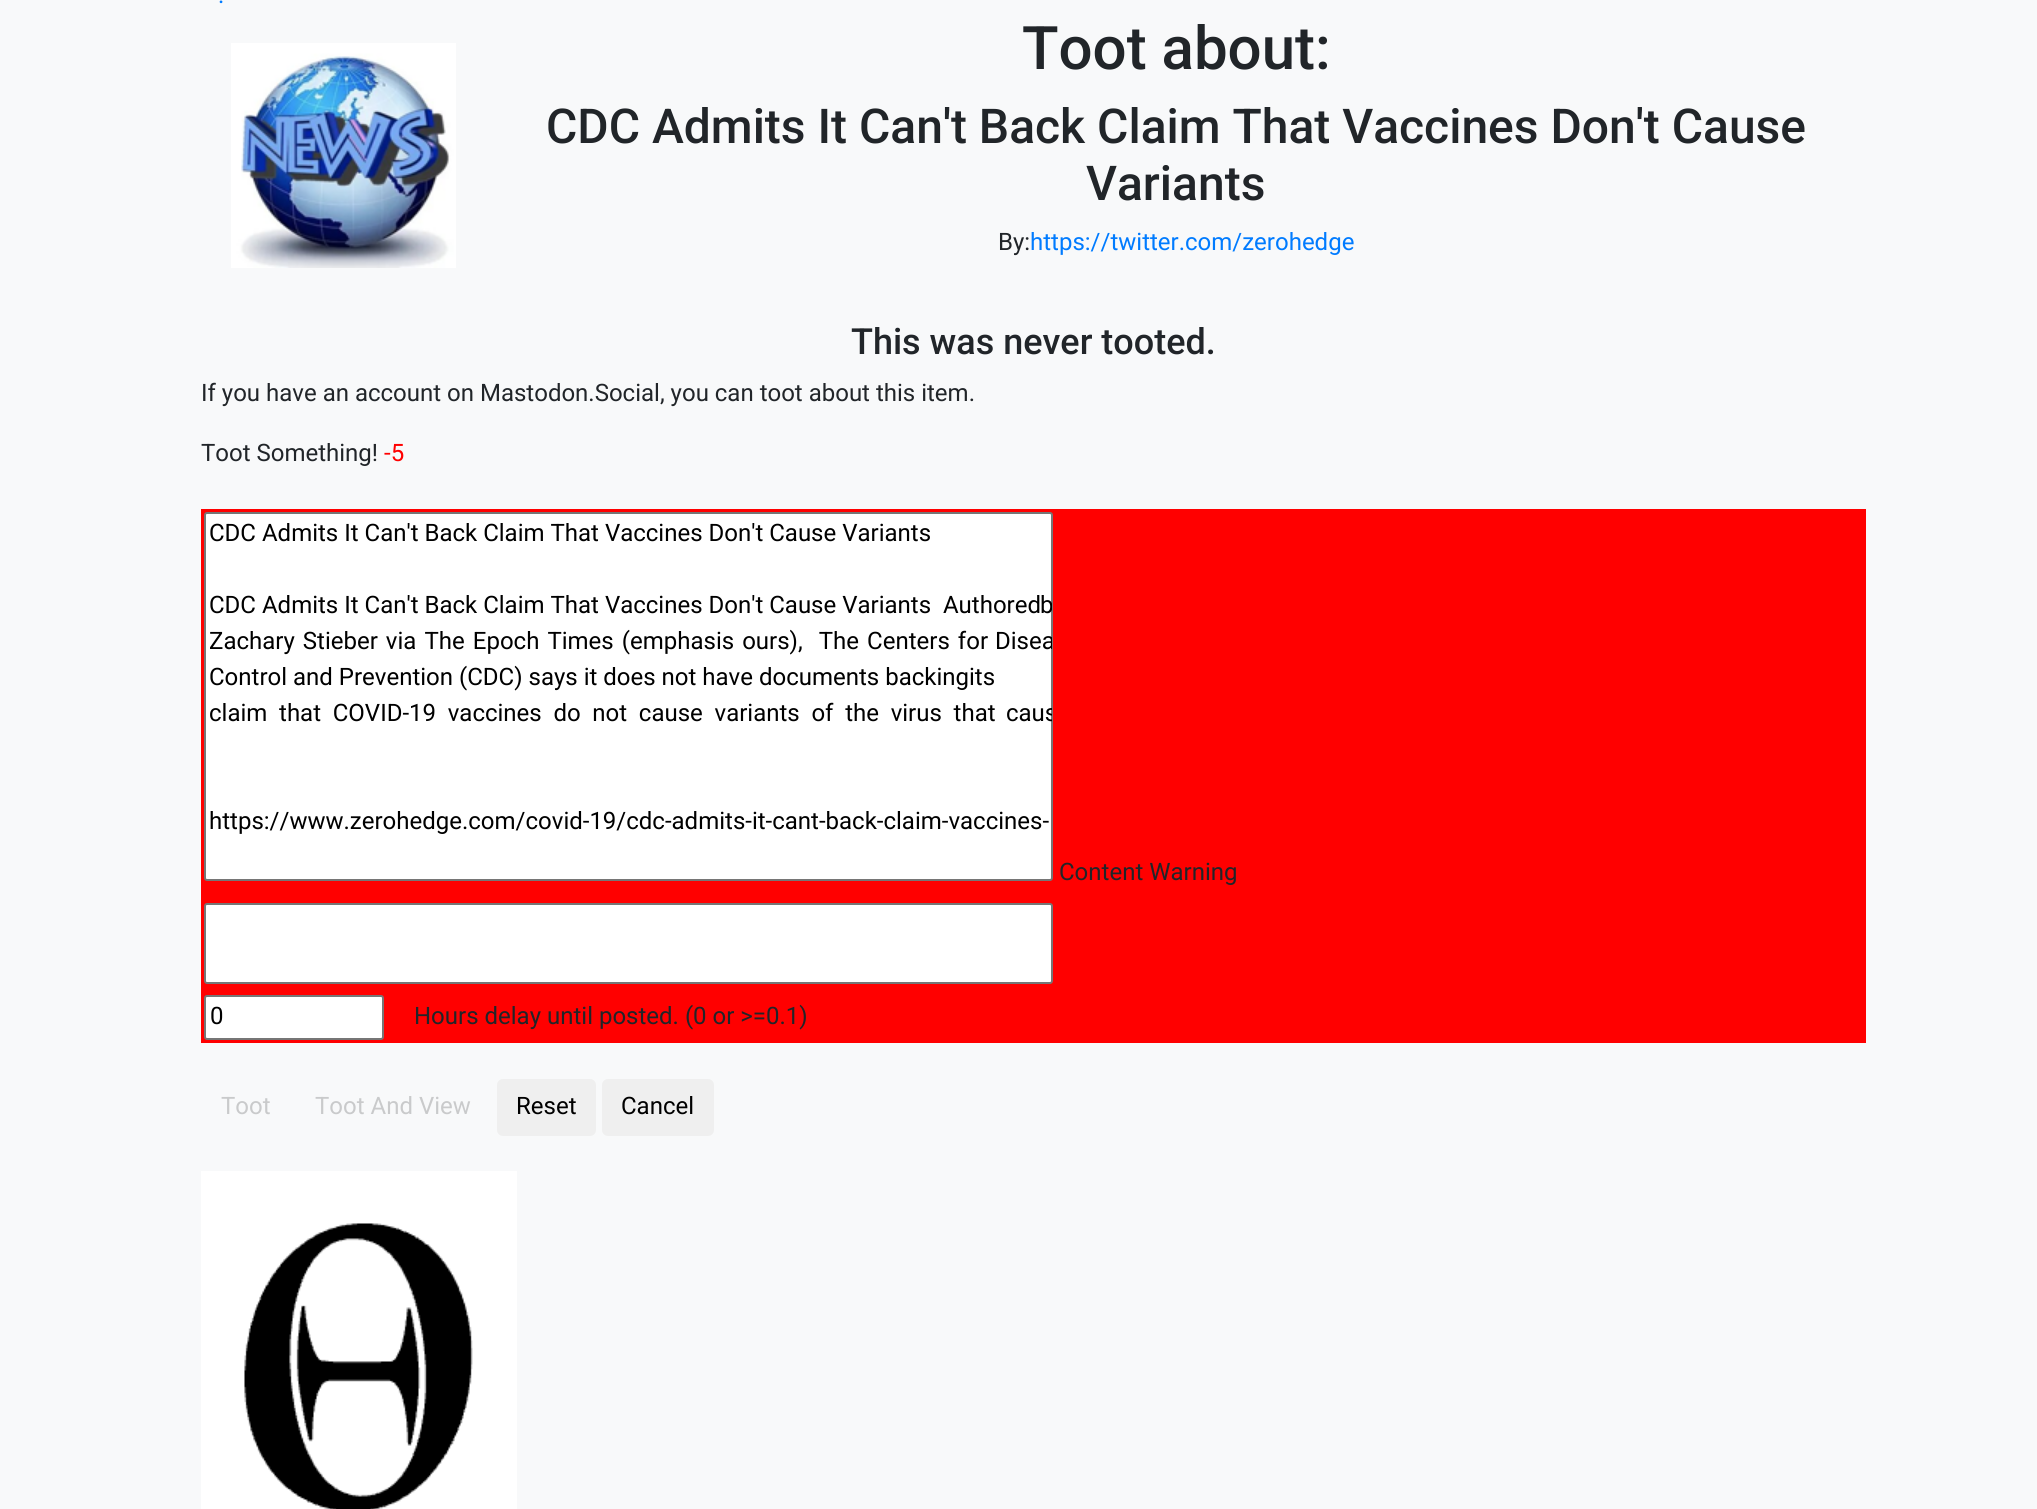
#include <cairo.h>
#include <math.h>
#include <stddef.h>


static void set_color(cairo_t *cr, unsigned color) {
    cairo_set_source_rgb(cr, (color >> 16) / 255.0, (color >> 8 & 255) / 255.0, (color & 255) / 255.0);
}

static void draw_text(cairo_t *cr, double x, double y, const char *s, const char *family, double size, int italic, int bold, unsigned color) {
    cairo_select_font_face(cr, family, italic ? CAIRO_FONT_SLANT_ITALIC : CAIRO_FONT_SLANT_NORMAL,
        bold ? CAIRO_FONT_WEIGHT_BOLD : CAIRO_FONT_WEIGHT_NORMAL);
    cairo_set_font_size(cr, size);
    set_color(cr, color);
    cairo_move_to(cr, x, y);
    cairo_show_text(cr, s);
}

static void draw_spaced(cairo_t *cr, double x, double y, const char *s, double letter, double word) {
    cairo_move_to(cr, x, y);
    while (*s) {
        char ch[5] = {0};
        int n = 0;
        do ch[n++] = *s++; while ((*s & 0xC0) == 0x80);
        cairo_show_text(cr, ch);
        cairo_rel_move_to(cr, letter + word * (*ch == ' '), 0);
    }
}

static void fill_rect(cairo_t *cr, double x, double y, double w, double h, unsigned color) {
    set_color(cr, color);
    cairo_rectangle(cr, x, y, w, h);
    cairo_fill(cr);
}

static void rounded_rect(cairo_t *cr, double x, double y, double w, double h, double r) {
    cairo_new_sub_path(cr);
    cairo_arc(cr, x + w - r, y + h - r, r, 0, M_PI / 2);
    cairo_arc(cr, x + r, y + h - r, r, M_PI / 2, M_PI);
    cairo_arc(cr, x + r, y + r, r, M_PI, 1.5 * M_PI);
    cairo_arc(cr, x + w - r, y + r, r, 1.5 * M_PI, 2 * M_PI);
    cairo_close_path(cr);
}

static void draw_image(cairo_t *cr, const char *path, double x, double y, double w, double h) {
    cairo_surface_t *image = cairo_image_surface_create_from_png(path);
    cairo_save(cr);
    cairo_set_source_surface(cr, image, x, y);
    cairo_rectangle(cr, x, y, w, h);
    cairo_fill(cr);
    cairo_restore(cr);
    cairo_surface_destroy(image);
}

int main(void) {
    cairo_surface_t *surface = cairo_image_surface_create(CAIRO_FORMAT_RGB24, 2037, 1509);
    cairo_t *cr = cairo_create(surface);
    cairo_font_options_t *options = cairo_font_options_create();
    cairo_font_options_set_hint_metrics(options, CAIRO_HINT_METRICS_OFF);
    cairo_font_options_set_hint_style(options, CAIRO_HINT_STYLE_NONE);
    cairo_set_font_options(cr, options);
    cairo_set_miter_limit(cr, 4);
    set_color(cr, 0xF8F9FA);
    cairo_paint(cr);
    draw_text(cr, 218, 3, ".", "Roboto", 24, 0, 0, 0x007BFF);
    draw_image(cr, "assets/img1.png", 231, 43, 225, 225);
    draw_text(cr, 1022, 69, "Toot about:", "Roboto Medium", 60, 0, 0, 0x212529);
    draw_text(cr, 546, 143, "CDC Admits It Can't Back Claim That Vaccines Don't Cause", "Roboto Medium", 48, 0, 0, 0x212529);
    draw_text(cr, 1086, 200, "Variants", "Roboto Medium", 48, 0, 0, 0x212529);
    draw_text(cr, 998, 250, "By:", "Roboto", 24, 0, 0, 0x212529);
    draw_text(cr, 1030, 250, "https://twitter.com/zerohedge", "Roboto", 24, 0, 0, 0x007BFF);
    draw_text(cr, 851, 354, "This was never tooted.", "Roboto Medium", 36, 0, 0, 0x212529);
    draw_text(cr, 201, 401, "If you have an account on Mastodon.Social, you can toot about this item.", "Roboto", 24, 0, 0, 0x212529);
    draw_text(cr, 201, 461, "Toot Something!", "Roboto", 24, 0, 0, 0x212529);
    draw_text(cr, 384, 461, "-5", "Roboto", 24, 0, 0, 0xFF0000);
    fill_rect(cr, 201, 509, 1665, 534, 0xFF0000);
    set_color(cr, 0xFFFFFF);
    rounded_rect(cr, 205, 513, 847, 367, 2);
    cairo_fill_preserve(cr);
    set_color(cr, 0x767676);
    cairo_stroke(cr);
    draw_text(cr, 209, 541, "CDC Admits It Can't Back Claim That Vaccines Don't Cause Variants", "Roboto", 24, 0, 0, 0x000000);
    draw_text(cr, 209, 613, "CDC Admits It Can't Back Claim That Vaccines Don't Cause Variants  Authored", "Roboto", 24, 0, 0, 0x000000);
    cairo_save(cr);
    cairo_rectangle(cr, 206, 513, 846, 366);
    cairo_clip(cr);
    draw_text(cr, 1040, 613, "b", "Roboto", 24, 0, 0, 0x000000);
    cairo_restore(cr);
    draw_spaced(cr, 209, 649, "Zachary Stieber via The Epoch Times (emphasis ours),  The Centers for", 0, 2.1);
    cairo_save(cr);
    cairo_rectangle(cr, 206, 513, 846, 366);
    cairo_clip(cr);
    draw_text(cr, 995, 649, "Disea", "Roboto", 24, 0, 0, 0x000000);
    cairo_restore(cr);
    draw_text(cr, 209, 685, "Control and Prevention (CDC) says it does not have documents backingits", "Roboto", 24, 0, 0, 0x000000);
    draw_spaced(cr, 209, 721, "claim that COVID-19 vaccines do not cause variants of the virus that", 0, 5.75);
    cairo_save(cr);
    cairo_rectangle(cr, 206, 513, 846, 366);
    cairo_clip(cr);
    draw_text(cr, 1006, 721, "caus", "Roboto", 24, 0, 0, 0x000000);
    cairo_restore(cr);
    draw_text(cr, 209, 829, "https://www.zerohedge.com/covid-19/cdc-admits-it-cant-back-claim-vaccines-", "Roboto", 24, 0, 0, 0x000000);
    draw_text(cr, 1059, 880, "Content Warning", "Roboto", 24, 0, 0, 0x212529);
    set_color(cr, 0xFFFFFF);
    rounded_rect(cr, 205, 904, 847, 79, 2);
    cairo_fill_preserve(cr);
    set_color(cr, 0x767676);
    cairo_stroke(cr);
    set_color(cr, 0xFFFFFF);
    rounded_rect(cr, 205, 996, 178, 43, 2);
    cairo_fill_preserve(cr);
    set_color(cr, 0x767676);
    cairo_stroke(cr);
    draw_text(cr, 210, 1024, "0", "Roboto", 24, 0, 0, 0x000000);
    draw_text(cr, 414, 1024, "Hours delay until posted. (0 or >=0.1)", "Roboto", 24, 0, 0, 0x212529);
    draw_text(cr, 221, 1114, "Toot", "Roboto", 24, 0, 0, 0xC9CACB);
    draw_text(cr, 315, 1114, "Toot And View", "Roboto", 24, 0, 0, 0xC9CACB);
    set_color(cr, 0xEFEFEF);
    rounded_rect(cr, 497, 1079, 99, 57, 6);
    cairo_fill(cr);
    draw_text(cr, 516, 1114, "Reset", "Roboto", 24, 0, 0, 0x000000);
    set_color(cr, 0xEFEFEF);
    rounded_rect(cr, 602, 1079, 112, 57, 6);
    cairo_fill(cr);
    draw_text(cr, 621, 1114, "Cancel", "Roboto", 24, 0, 0, 0x000000);
    draw_image(cr, "assets/img2.png", 201, 1171, 316, 338);
    cairo_surface_write_to_png(surface, "output.png");
    cairo_font_options_destroy(options);
    cairo_destroy(cr);
    cairo_surface_destroy(surface);
    return 0;
}
